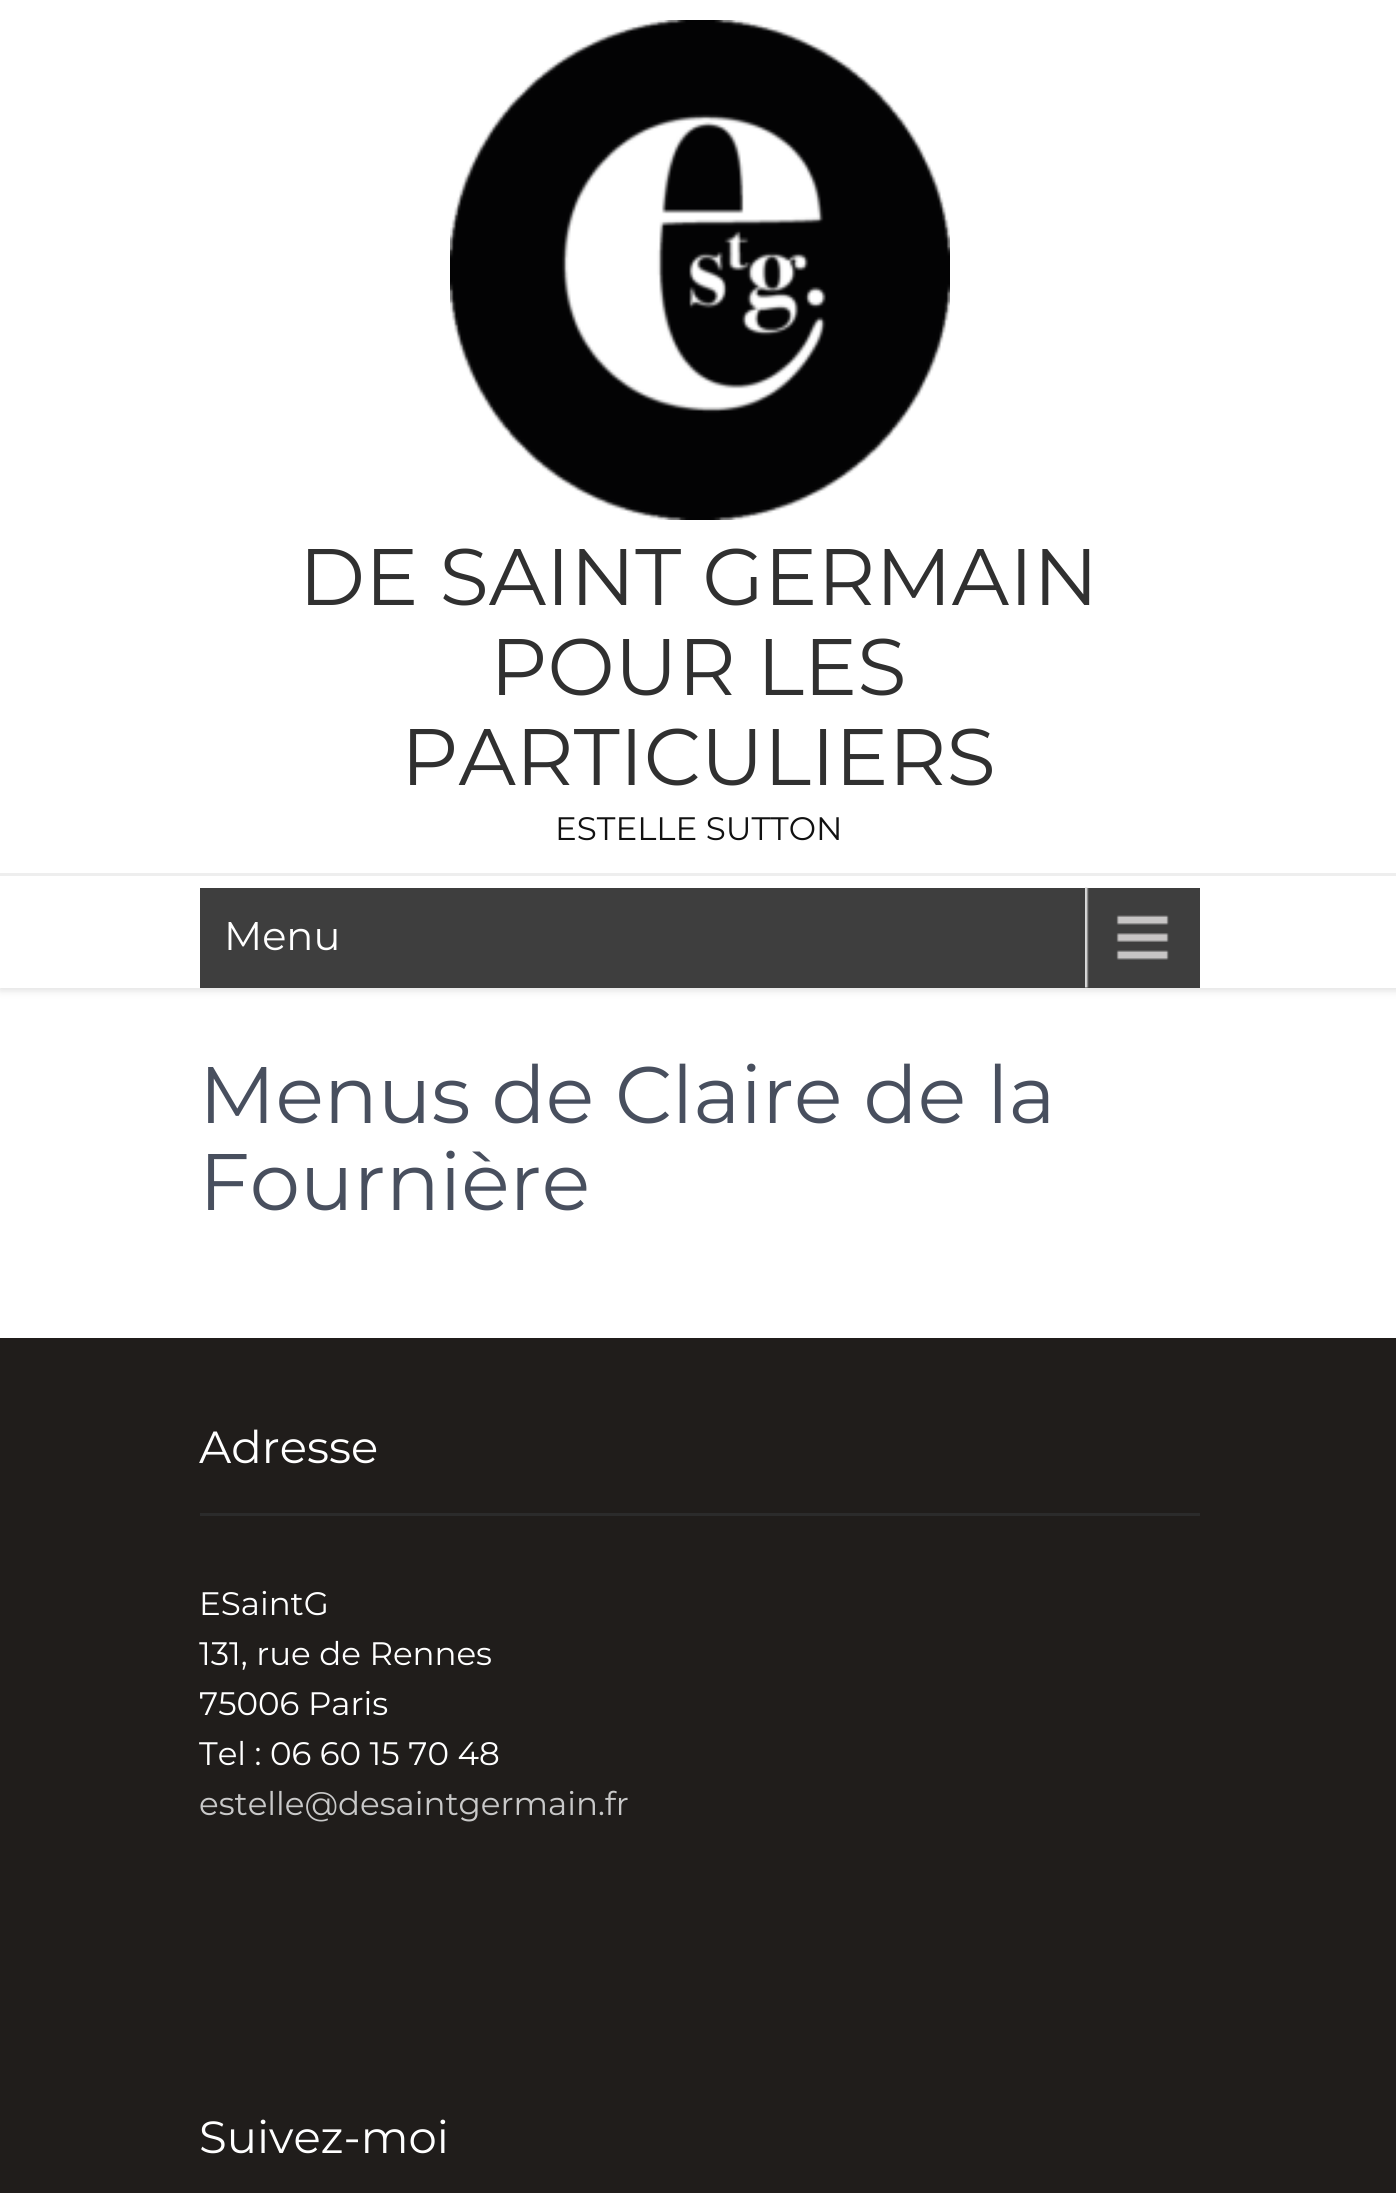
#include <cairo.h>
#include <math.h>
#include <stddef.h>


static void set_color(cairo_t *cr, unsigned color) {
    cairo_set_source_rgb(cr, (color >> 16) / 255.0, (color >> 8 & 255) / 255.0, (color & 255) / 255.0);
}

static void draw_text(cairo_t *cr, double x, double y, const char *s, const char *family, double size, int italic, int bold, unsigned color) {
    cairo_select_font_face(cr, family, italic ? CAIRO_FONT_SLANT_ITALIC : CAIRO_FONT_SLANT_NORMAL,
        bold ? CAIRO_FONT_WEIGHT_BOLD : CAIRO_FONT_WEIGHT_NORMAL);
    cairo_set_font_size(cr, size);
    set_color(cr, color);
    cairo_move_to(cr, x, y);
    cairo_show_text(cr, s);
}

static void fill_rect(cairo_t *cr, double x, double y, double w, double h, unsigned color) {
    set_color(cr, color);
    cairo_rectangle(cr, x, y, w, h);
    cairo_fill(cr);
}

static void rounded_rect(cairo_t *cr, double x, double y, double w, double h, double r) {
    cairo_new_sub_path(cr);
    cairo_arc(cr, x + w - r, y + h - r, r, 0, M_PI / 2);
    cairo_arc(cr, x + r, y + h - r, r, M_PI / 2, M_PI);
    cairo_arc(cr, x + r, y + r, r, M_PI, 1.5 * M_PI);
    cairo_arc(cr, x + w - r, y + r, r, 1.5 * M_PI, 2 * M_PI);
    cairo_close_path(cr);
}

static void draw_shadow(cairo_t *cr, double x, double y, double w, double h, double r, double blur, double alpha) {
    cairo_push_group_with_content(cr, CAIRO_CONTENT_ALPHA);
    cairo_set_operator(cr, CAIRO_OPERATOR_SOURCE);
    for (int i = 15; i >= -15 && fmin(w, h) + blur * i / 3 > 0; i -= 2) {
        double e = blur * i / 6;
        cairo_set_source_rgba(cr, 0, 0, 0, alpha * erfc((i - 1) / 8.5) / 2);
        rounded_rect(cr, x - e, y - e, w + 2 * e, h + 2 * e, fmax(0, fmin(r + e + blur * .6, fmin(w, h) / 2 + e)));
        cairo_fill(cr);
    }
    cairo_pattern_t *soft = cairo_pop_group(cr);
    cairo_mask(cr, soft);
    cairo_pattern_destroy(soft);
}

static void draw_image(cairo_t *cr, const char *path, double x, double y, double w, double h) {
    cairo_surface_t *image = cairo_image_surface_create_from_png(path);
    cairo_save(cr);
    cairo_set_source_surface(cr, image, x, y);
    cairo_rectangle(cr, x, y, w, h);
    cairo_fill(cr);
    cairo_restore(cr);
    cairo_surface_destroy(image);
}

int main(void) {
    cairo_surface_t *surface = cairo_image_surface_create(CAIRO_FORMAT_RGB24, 1396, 2193);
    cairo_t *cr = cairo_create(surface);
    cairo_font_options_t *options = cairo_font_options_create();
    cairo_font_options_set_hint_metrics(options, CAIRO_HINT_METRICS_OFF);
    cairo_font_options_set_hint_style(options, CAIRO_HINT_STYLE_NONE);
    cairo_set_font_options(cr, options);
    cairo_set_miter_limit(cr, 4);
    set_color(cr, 0xFFFFFF);
    cairo_paint(cr);
    cairo_save(cr);
    cairo_set_fill_rule(cr, CAIRO_FILL_RULE_EVEN_ODD);
    cairo_new_path(cr);
    cairo_move_to(cr, 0, 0);
    cairo_line_to(cr, 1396, 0);
    cairo_line_to(cr, 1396, 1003);
    cairo_line_to(cr, 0, 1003);
    cairo_close_path(cr);
    cairo_move_to(cr, 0, 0);
    cairo_line_to(cr, 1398, 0);
    cairo_line_to(cr, 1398, 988);
    cairo_line_to(cr, 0, 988);
    cairo_close_path(cr);
    cairo_clip(cr);
    set_color(cr, 0xDDDDDD);
    draw_shadow(cr, 0, 3, 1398, 987, 0, 4, 1);
    cairo_restore(cr);
    draw_image(cr, "assets/img1.png", 450, 20, 500, 500);
    draw_text(cr, 299, 605, "DE SAINT GERMAIN", "Montserrat", 80, 0, 0, 0x303030);
    draw_text(cr, 490, 695, "POUR LES", "Montserrat", 80, 0, 0, 0x303030);
    draw_text(cr, 401, 785, "PARTICULIERS", "Montserrat", 80, 0, 0, 0x303030);
    draw_text(cr, 555, 840, "ESTELLE SUTTON", "Montserrat", 32.5, 0, 0, 0x111111);
    fill_rect(cr, 0, 873, 1396, 3, 0xEEEEEE);
    fill_rect(cr, 200, 888, 1000, 100, 0x3E3E3E);
    draw_image(cr, "assets/img2.png", 1085, 887, 84, 101);
    draw_text(cr, 224, 950, "Menu", "Montserrat", 40, 0, 0, 0xFFFFFF);
    draw_text(cr, 199, 1123, "Menus de Claire de la", "Montserrat", 80, 0, 0, 0x484F5E);
    draw_text(cr, 199, 1210, "Fournière", "Montserrat", 80, 0, 0, 0x484F5E);
    fill_rect(cr, 0, 1338, 1396, 855, 0x201D1B);
    fill_rect(cr, 200, 1513, 1000, 3, 0x2B2B2B);
    draw_text(cr, 199, 1463, "Adresse", "Montserrat", 45, 0, 0, 0xFFFFFF);
    draw_text(cr, 199, 1615, "ESaintG", "Montserrat", 32.5, 0, 0, 0xFFFFFF);
    draw_text(cr, 199, 1665, "131, rue de Rennes", "Montserrat", 32.5, 0, 0, 0xFFFFFF);
    draw_text(cr, 199, 1715, "75006 Paris", "Montserrat", 32.5, 0, 0, 0xFFFFFF);
    draw_text(cr, 199, 1765, "Tel : 06 60 15 70 48", "Montserrat", 32.5, 0, 0, 0xFFFFFF);
    draw_text(cr, 199, 1815, "estelle@desaintgermain.fr", "Montserrat", 32.5, 0, 0, 0xC9C9C9);
    draw_text(cr, 199, 2153, "Suivez-moi", "Montserrat", 45, 0, 0, 0xFFFFFF);
    cairo_surface_write_to_png(surface, "output.png");
    cairo_font_options_destroy(options);
    cairo_destroy(cr);
    cairo_surface_destroy(surface);
    return 0;
}
